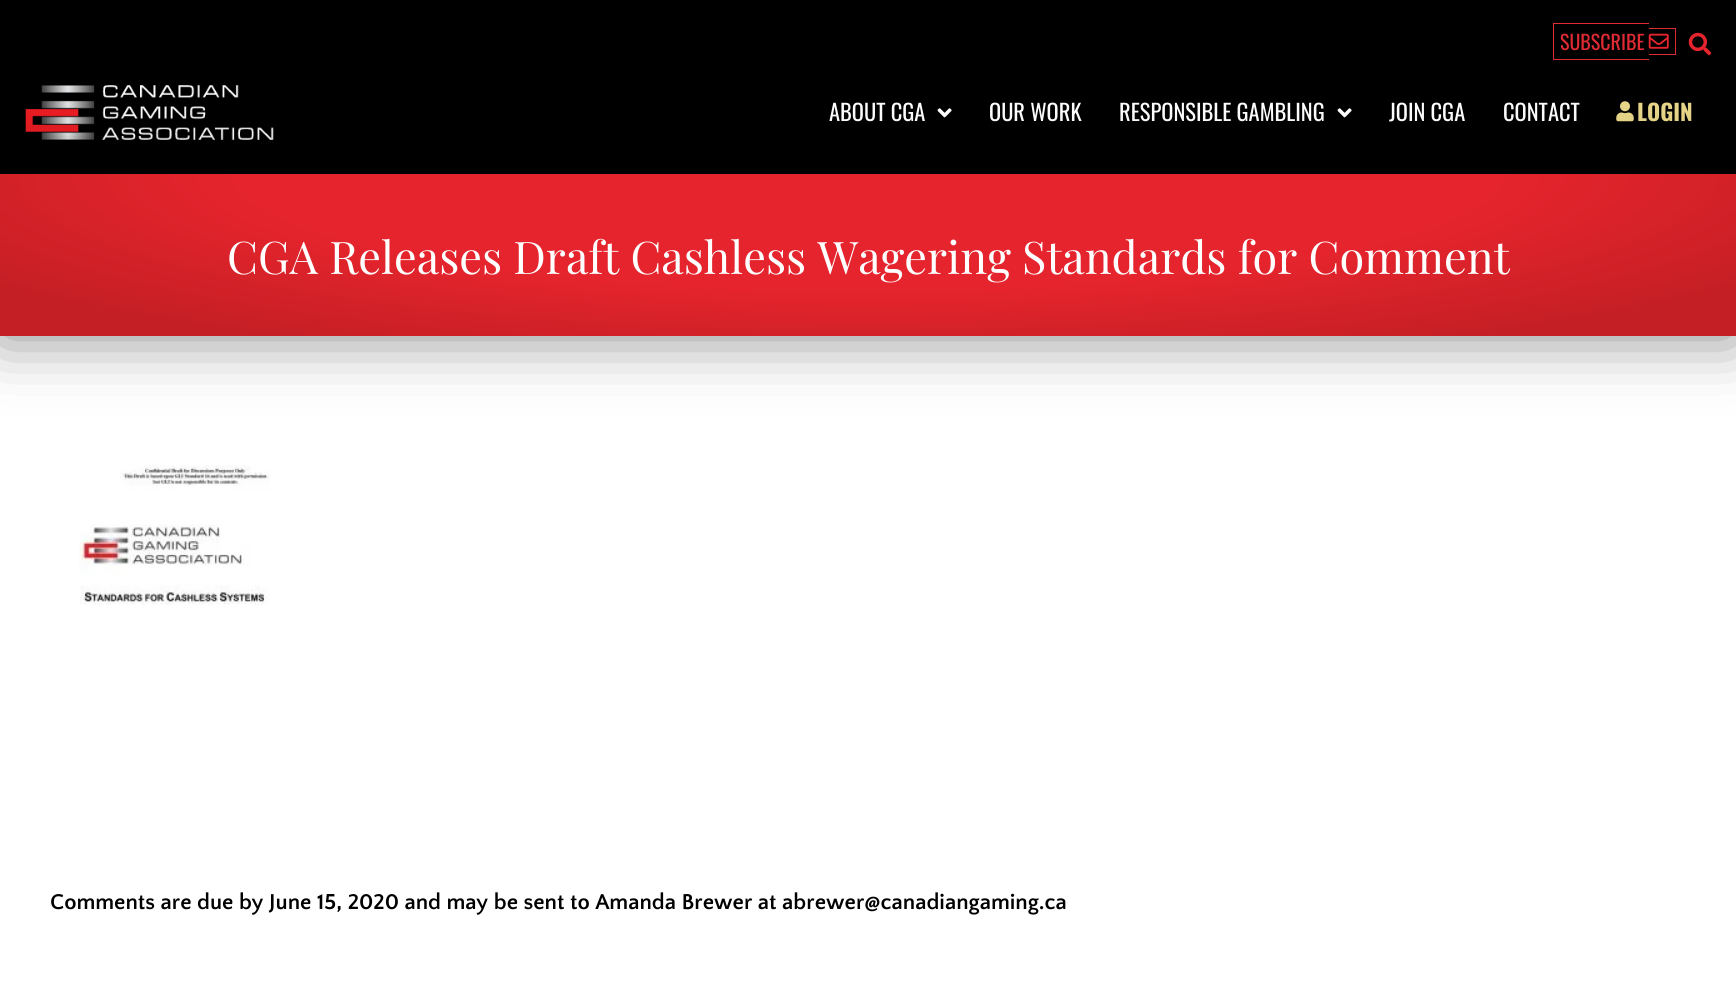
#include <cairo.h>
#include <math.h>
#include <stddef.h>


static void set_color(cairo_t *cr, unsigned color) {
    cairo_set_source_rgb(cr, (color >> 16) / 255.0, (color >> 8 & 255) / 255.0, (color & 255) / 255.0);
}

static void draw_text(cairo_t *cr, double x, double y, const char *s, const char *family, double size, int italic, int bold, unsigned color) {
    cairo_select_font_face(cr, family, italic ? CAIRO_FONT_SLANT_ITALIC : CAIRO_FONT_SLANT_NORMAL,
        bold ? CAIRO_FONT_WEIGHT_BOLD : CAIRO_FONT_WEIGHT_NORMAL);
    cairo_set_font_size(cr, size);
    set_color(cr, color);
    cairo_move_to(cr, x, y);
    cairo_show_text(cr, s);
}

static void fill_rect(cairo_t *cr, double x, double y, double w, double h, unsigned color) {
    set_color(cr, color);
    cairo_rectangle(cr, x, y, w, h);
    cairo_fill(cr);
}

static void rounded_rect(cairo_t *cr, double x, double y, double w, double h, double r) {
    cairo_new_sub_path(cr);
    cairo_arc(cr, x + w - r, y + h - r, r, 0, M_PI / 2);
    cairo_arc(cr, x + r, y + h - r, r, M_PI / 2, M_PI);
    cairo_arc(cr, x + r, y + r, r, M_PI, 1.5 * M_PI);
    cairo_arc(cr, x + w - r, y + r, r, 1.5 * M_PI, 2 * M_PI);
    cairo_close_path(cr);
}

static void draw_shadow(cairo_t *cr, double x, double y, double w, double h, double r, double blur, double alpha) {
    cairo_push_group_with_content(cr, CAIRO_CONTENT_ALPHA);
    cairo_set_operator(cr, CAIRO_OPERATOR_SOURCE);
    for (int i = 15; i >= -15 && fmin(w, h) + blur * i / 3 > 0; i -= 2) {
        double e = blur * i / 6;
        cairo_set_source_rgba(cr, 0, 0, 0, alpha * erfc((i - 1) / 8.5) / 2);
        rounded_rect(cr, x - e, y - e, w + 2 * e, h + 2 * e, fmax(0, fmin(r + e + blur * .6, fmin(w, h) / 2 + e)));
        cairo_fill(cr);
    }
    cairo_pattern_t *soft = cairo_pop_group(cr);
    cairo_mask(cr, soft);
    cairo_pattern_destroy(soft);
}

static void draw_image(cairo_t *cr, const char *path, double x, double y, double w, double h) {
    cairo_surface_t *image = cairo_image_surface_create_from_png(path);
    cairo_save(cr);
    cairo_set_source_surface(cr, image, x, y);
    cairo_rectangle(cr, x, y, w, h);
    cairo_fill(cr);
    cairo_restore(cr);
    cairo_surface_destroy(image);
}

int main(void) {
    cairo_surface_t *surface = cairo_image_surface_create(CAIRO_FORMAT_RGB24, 1736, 1008);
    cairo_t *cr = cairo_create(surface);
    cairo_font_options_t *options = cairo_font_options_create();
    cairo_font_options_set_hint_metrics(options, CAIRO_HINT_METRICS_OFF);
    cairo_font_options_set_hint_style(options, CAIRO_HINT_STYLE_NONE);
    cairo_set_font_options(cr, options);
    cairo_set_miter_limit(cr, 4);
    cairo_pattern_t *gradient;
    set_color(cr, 0x000000);
    cairo_paint(cr);
    draw_text(cr, 1560, 50, "SUBSCRIBE", "Oswald", 20, 0, 0, 0xE02A34);
    fill_rect(cr, 1553, 23, 96, 1, 0xE02A34);
    fill_rect(cr, 1553, 59, 96, 1, 0xE02A34);
    fill_rect(cr, 1553, 23, 1, 37, 0xE02A34);
    fill_rect(cr, 1649, 28, 27, 1, 0xE02A34);
    fill_rect(cr, 1675, 28, 1, 27, 0xE02A34);
    fill_rect(cr, 1649, 54, 27, 1, 0xE02A34);
    draw_image(cr, "assets/img1.png", 1648, 33, 21, 16);
    draw_image(cr, "assets/img2.png", 1688, 32, 24, 24);
    draw_image(cr, "assets/img3.png", 25, 85, 249, 55);
    draw_text(cr, 829, 121, "ABOUT CGA", "Oswald", 22.5, 0, 0, 0xFFFFFF);
    draw_image(cr, "assets/img4.png", 937, 108, 15, 10);
    draw_text(cr, 989, 121, "OUR WORK", "Oswald", 22.5, 0, 0, 0xFFFFFF);
    draw_text(cr, 1119, 121, "RESPONSIBLE GAMBLING", "Oswald", 22.5, 0, 0, 0xFFFFFF);
    draw_image(cr, "assets/img4.png", 1337, 108, 15, 10);
    draw_text(cr, 1389, 121, "JOIN CGA", "Oswald", 22.5, 0, 0, 0xFFFFFF);
    draw_text(cr, 1503, 121, "CONTACT", "Oswald", 22.5, 0, 0, 0xFFFFFF);
    draw_image(cr, "assets/img5.png", 1616, 101, 18, 21);
    draw_text(cr, 1637, 121, "LOGIN", "Oswald", 22.5, 0, 1, 0xE8D689);
    fill_rect(cr, 0, 336, 1736, 672, 0xFFFFFF);
    set_color(cr, 0x000000);
    draw_shadow(cr, 0, 174, 1736, 162, 0, 32.5, 0.48);
    gradient = cairo_pattern_create_radial(0, 0, 0, 0, 0, 1);
    cairo_pattern_set_matrix(gradient, &(cairo_matrix_t){1.0 / 1228, 0, 0, 1.0 / 230, -1.0 * 868 / 1228, -1.0 * 174 / 230});
    cairo_pattern_add_color_stop_rgba(gradient, 0.51, 0.898, 0.141, 0.176, 1);
    cairo_pattern_add_color_stop_rgba(gradient, 0.86, 0.769, 0.122, 0.141, 1);
    cairo_set_source(cr, gradient);
    cairo_pattern_destroy(gradient);
    cairo_rectangle(cr, 0, 174, 1736, 162);
    cairo_fill(cr);
    draw_text(cr, 227, 274, "CGA Releases Draft Cashless Wagering Standards for Comment", "Playfair Display", 45, 0, 0, 0xFFFFFF);
    draw_image(cr, "assets/img6.png", 79, 465, 191, 140);
    draw_text(cr, 50, 909, "Comments are due by June 15, 2020 and may be sent to Amanda Brewer at abrewer@canadiangaming.ca", "Quattrocento Sans", 22.5, 0, 1, 0x000000);
    cairo_surface_write_to_png(surface, "output.png");
    cairo_font_options_destroy(options);
    cairo_destroy(cr);
    cairo_surface_destroy(surface);
    return 0;
}
